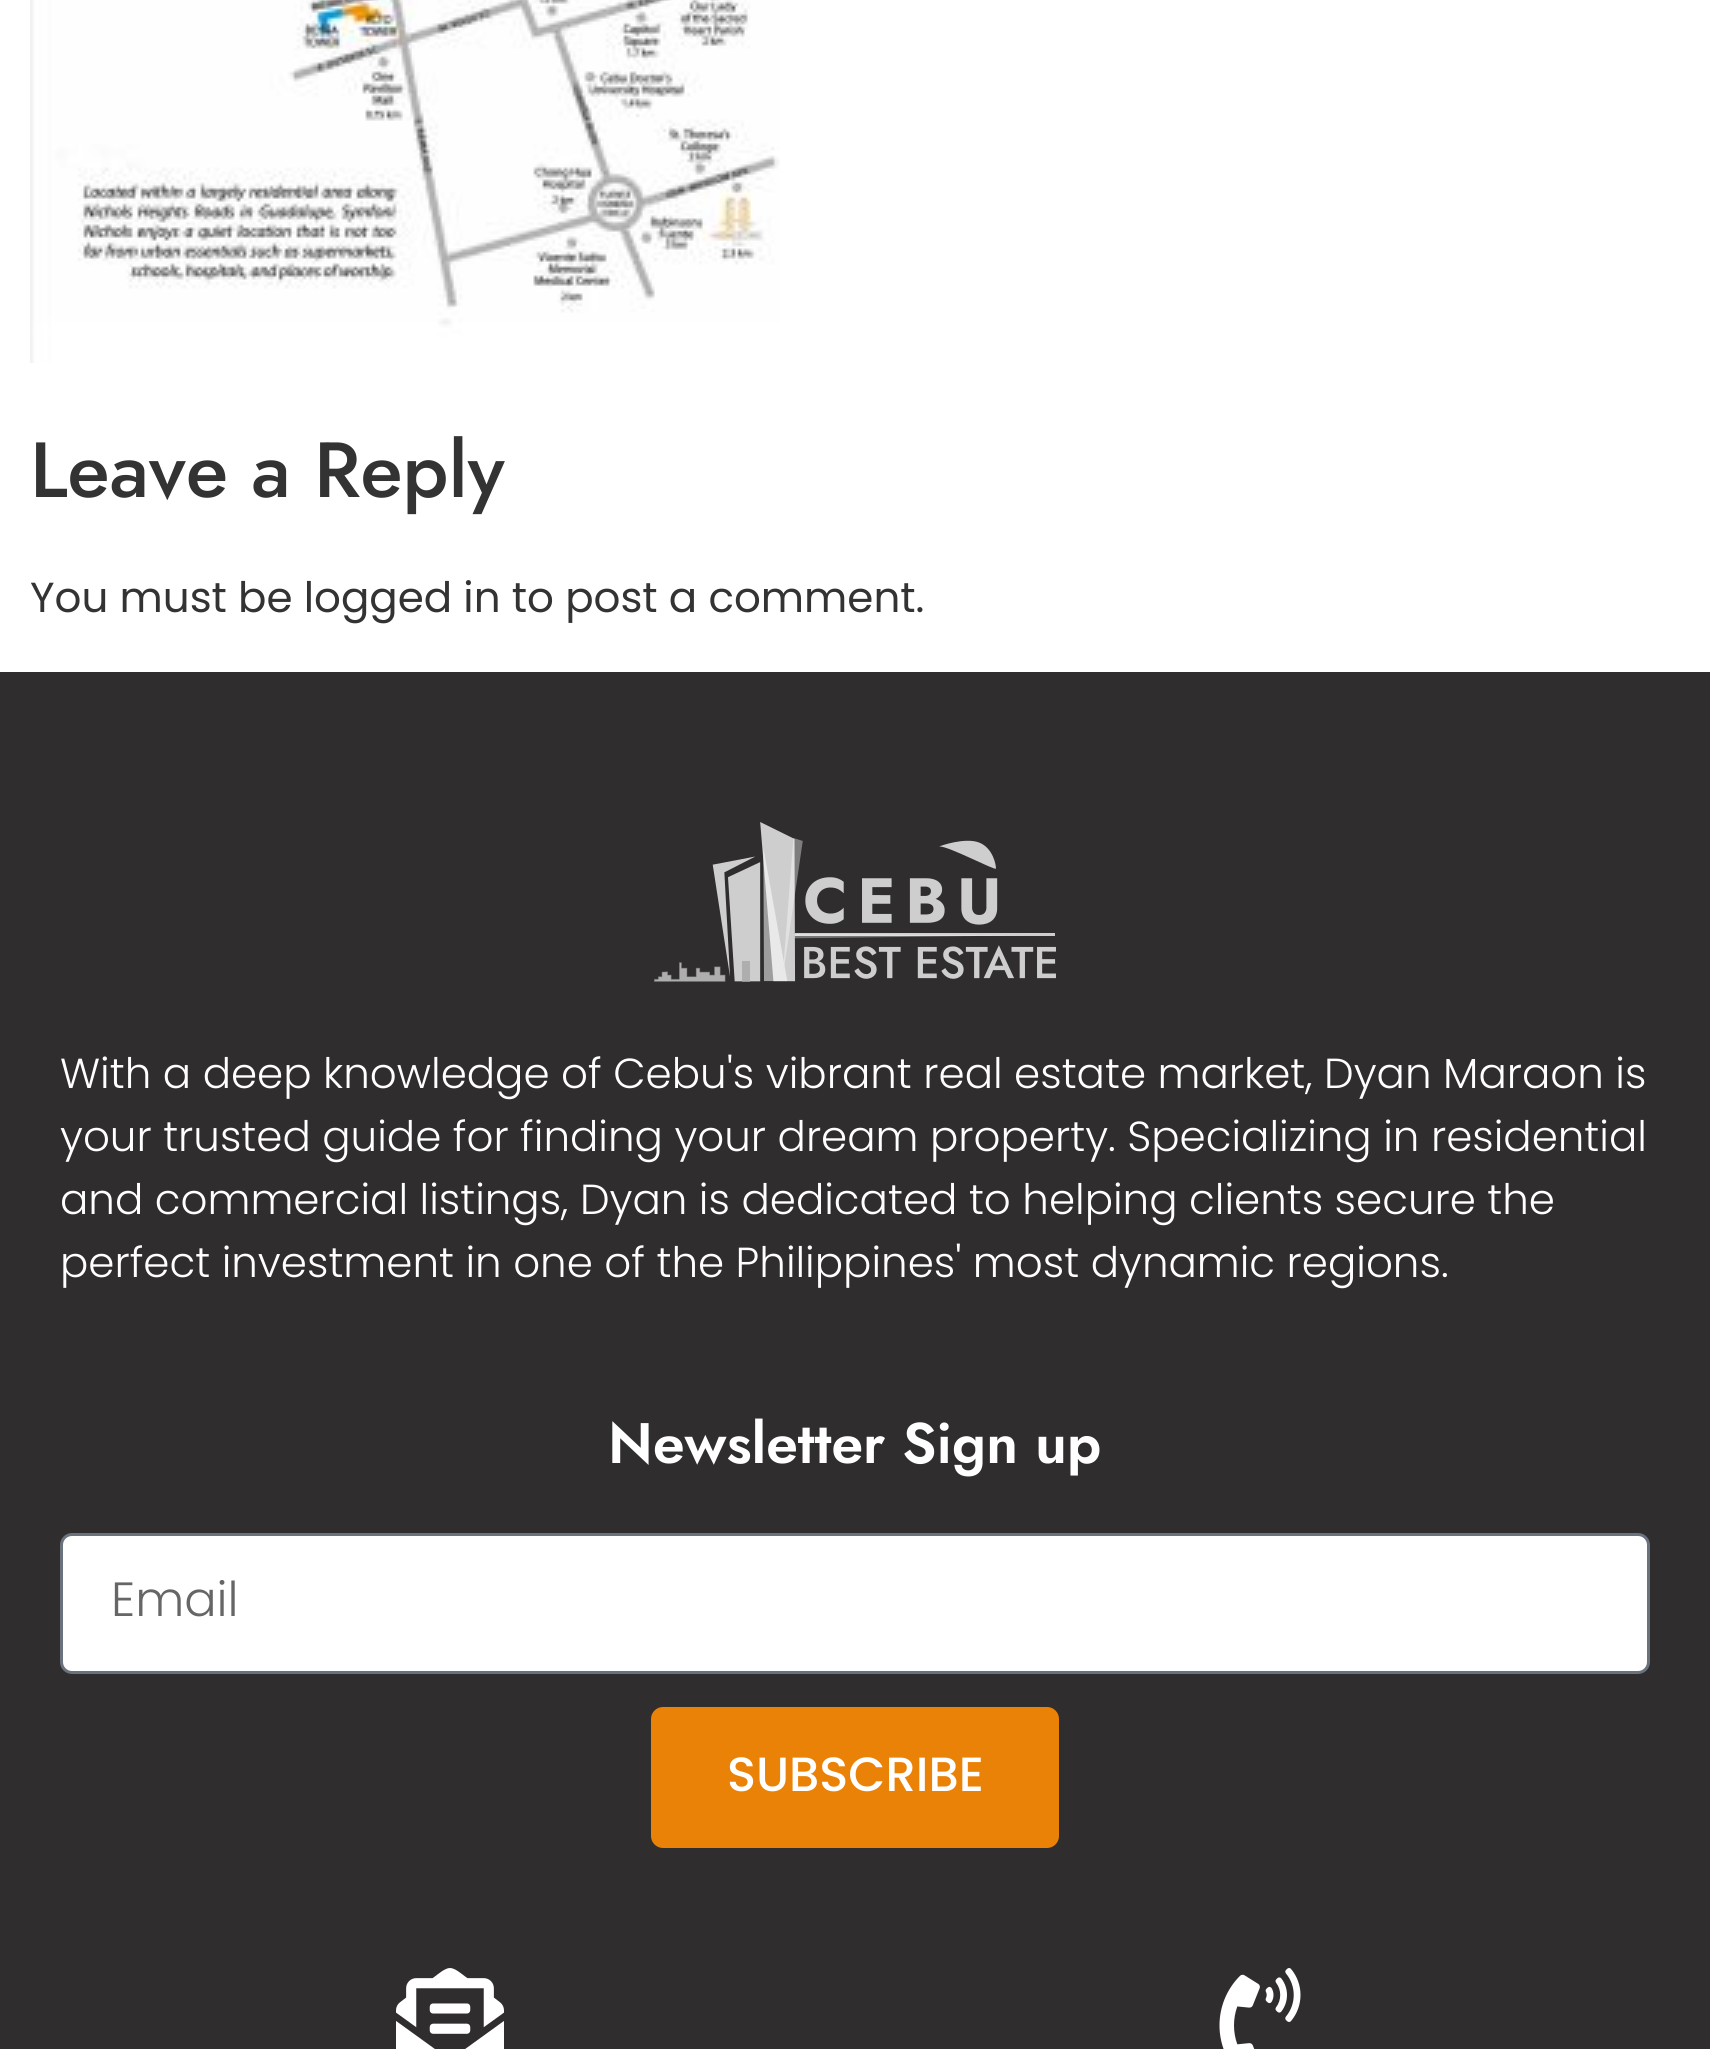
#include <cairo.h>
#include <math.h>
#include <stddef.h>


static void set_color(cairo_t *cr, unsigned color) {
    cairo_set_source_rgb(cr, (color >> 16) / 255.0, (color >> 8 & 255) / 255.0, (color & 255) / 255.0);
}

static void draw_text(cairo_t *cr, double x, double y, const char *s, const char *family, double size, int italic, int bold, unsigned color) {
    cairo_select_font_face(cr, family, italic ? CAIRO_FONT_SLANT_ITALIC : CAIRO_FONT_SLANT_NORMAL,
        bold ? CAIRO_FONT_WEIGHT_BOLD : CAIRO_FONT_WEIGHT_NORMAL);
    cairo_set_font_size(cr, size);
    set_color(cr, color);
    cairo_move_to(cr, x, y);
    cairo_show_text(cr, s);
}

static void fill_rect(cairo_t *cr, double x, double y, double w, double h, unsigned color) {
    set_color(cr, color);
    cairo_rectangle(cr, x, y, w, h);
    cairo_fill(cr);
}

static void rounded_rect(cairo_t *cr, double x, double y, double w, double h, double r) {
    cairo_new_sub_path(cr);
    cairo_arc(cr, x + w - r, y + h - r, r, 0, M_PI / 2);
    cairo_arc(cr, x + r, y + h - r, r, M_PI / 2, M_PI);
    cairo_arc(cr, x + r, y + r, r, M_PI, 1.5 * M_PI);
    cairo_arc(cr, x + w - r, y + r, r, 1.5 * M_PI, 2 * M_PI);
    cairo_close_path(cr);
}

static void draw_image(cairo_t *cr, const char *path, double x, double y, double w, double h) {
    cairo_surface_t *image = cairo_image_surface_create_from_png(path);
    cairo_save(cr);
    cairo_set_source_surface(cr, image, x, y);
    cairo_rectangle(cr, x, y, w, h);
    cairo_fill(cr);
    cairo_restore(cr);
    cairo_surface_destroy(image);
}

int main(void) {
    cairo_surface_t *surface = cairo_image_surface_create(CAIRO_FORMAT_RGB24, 1710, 2049);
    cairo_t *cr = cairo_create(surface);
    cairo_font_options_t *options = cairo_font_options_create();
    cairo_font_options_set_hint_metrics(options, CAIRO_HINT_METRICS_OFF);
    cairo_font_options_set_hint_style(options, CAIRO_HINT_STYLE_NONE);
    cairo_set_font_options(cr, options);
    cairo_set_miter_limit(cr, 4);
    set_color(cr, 0xFFFFFF);
    cairo_paint(cr);
    draw_image(cr, "assets/img1.png", 30, 0, 750, 363);
    draw_text(cr, 30, 497, "Leave a Reply", "Jost Medium", 78, 0, 0, 0x333333);
    draw_text(cr, 30, 612, "You must be logged in to post a comment.", "Poppins", 42, 0, 0, 0x333333);
    fill_rect(cr, 0, 672, 1710, 1377, 0x302D2F);
    draw_image(cr, "assets/img2.png", 654, 822, 402, 160);
    draw_text(cr, 60, 1088, "With a deep knowledge of Cebu's vibrant real estate market, Dyan Maraon is", "Poppins Light", 42, 0, 0, 0xFFFFFF);
    draw_text(cr, 60, 1151, "your trusted guide for finding your dream property. Specializing in residential", "Poppins Light", 42, 0, 0, 0xFFFFFF);
    draw_text(cr, 60, 1214, "and commercial listings, Dyan is dedicated to helping clients secure the", "Poppins Light", 42, 0, 0, 0xFFFFFF);
    draw_text(cr, 60, 1277, "perfect investment in one of the Philippines' most dynamic regions.", "Poppins Light", 42, 0, 0, 0xFFFFFF);
    draw_text(cr, 608, 1463, "Newsletter Sign up", "Jost SemiBold", 57, 0, 0, 0xFFFFFF);
    rounded_rect(cr, 61.5, 1534.5, 1587, 138, 10.5);
    cairo_fill_preserve(cr);
    set_color(cr, 0x69727D);
    cairo_set_line_width(cr, 3);
    cairo_stroke(cr);
    draw_text(cr, 111, 1616, "Email", "Poppins Light", 48, 0, 0, 0x666666);
    set_color(cr, 0xEB8208);
    rounded_rect(cr, 651, 1707, 408, 141, 12);
    cairo_fill(cr);
    draw_text(cr, 727, 1791, "SUBSCRIBE", "Poppins Medium", 48, 0, 0, 0xFFFFFF);
    draw_image(cr, "assets/img3.png", 396, 1968, 108, 81);
    draw_image(cr, "assets/img4.png", 1219, 1968, 82, 81);
    cairo_surface_write_to_png(surface, "output.png");
    cairo_font_options_destroy(options);
    cairo_destroy(cr);
    cairo_surface_destroy(surface);
    return 0;
}
